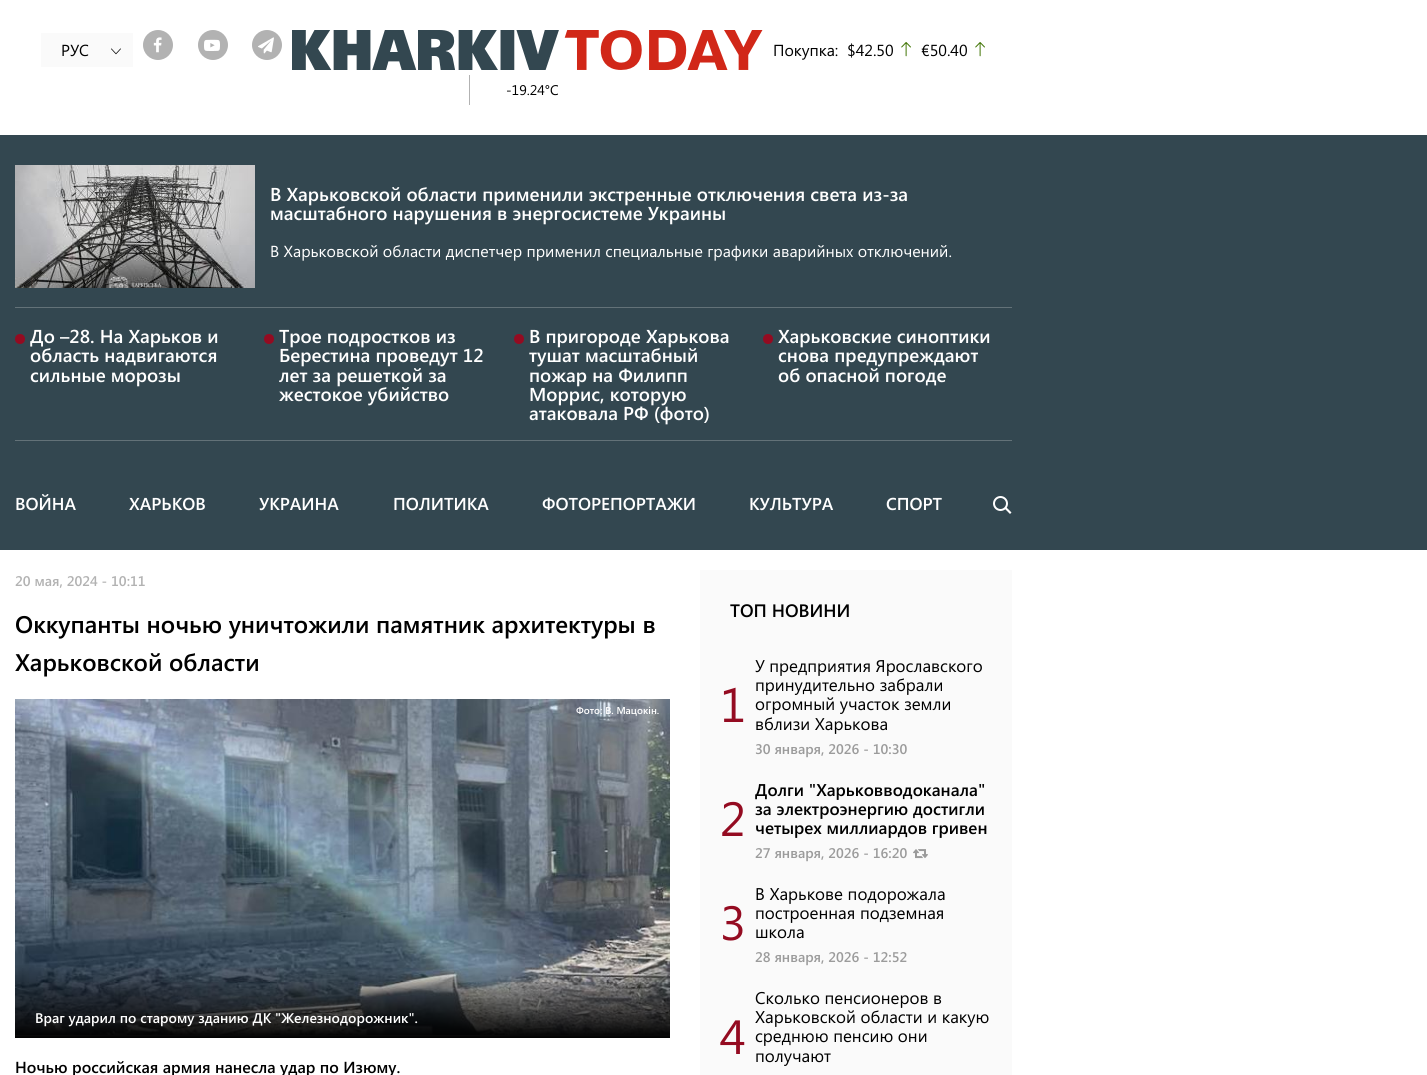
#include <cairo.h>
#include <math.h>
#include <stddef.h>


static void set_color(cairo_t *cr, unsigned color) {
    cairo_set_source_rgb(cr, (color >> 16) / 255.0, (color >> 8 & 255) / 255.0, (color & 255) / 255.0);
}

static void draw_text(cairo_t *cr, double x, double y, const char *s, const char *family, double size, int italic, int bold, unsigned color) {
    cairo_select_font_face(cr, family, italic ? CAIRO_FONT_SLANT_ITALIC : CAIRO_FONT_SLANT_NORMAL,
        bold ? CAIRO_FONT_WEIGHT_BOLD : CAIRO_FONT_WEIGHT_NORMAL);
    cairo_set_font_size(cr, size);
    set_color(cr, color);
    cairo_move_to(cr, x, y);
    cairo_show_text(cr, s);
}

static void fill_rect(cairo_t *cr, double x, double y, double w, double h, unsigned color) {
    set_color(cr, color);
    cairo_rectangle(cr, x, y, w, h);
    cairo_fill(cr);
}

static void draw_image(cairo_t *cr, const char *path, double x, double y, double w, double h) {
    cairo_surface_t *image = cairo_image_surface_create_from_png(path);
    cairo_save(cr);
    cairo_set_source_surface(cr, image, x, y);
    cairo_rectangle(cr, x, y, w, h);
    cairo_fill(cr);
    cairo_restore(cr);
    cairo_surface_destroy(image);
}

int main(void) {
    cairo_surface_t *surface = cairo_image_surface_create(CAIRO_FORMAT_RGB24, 1427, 1075);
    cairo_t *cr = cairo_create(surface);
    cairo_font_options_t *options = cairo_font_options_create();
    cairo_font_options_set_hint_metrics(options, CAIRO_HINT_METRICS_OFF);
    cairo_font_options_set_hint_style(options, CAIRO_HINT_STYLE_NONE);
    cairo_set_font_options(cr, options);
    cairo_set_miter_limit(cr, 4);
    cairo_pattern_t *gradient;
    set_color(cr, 0xFFFFFF);
    cairo_paint(cr);
    fill_rect(cr, 41, 33, 92, 34, 0xFAFAFA);
    draw_text(cr, 61, 56, "РУС", "Segoe UI", 16, 0, 0, 0x000000);
    draw_image(cr, "assets/img1.png", 111, 48, 10, 7);
    set_color(cr, 0xB2B2B2);
    cairo_arc(cr, 158, 45, 15, 0, 2 * M_PI);
    cairo_fill(cr);
    draw_image(cr, "assets/img2.png", 153, 37, 9, 16);
    cairo_arc(cr, 213, 45, 15, 0, 2 * M_PI);
    cairo_fill(cr);
    draw_image(cr, "assets/img3.png", 204, 39, 16, 12);
    cairo_arc(cr, 267, 45, 15, 0, 2 * M_PI);
    cairo_fill(cr);
    draw_image(cr, "assets/img4.png", 258, 37, 16, 17);
    draw_image(cr, "assets/img5.png", 292, 30, 471, 40);
    draw_text(cr, 773, 56, "Покупка:", "Segoe UI", 16, 0, 0, 0x000000);
    draw_text(cr, 847, 56, "$42.50", "Segoe UI", 16, 0, 0, 0x000000);
    draw_image(cr, "assets/img6.png", 901, 42, 10, 15);
    draw_text(cr, 921, 56, "€50.40", "Segoe UI", 16, 0, 0, 0x000000);
    draw_image(cr, "assets/img6.png", 975, 42, 10, 15);
    fill_rect(cr, 469, 75, 1, 30, 0xB2B2B2);
    draw_text(cr, 506, 95, "-19.24°C", "Segoe UI", 14, 0, 0, 0x000000);
    fill_rect(cr, 0, 135, 1427, 415, 0x334750);
    fill_rect(cr, 15, 440, 997, 1, 0x637278);
    fill_rect(cr, 15, 307, 997, 1, 0x637278);
    draw_image(cr, "assets/img7.png", 15, 165, 240, 123);
    draw_text(cr, 270, 201, "В Харьковской области применили экстренные отключения света из-за", "Segoe UI SemiBold", 18.7, 0, 0, 0xFFFFFF);
    draw_text(cr, 270, 220, "масштабного нарушения в энергосистеме Украины", "Segoe UI SemiBold", 18.7, 0, 0, 0xFFFFFF);
    draw_text(cr, 270, 257, "В Харьковской области диспетчер применил специальные графики аварийных отключений.", "Segoe UI", 16, 0, 0, 0xFFFFFF);
    set_color(cr, 0x940B21);
    cairo_new_path(cr);
    cairo_arc(cr, 20, 339, 5, 0, 2 * M_PI);
    cairo_fill(cr);
    draw_text(cr, 30, 343, "До –28. На Харьков и", "Segoe UI SemiBold", 18.7, 0, 0, 0xFFFFFF);
    draw_text(cr, 30, 362, "область надвигаются", "Segoe UI SemiBold", 18.7, 0, 0, 0xFFFFFF);
    draw_text(cr, 30, 382, "сильные морозы", "Segoe UI SemiBold", 18.7, 0, 0, 0xFFFFFF);
    set_color(cr, 0x940B21);
    cairo_new_path(cr);
    cairo_arc(cr, 269, 339, 5, 0, 2 * M_PI);
    cairo_fill(cr);
    draw_text(cr, 279, 343, "Трое подростков из", "Segoe UI SemiBold", 18.7, 0, 0, 0xFFFFFF);
    draw_text(cr, 279, 362, "Берестина проведут 12", "Segoe UI SemiBold", 18.7, 0, 0, 0xFFFFFF);
    draw_text(cr, 279, 382, "лет за решеткой за", "Segoe UI SemiBold", 18.7, 0, 0, 0xFFFFFF);
    draw_text(cr, 279, 401, "жестокое убийство", "Segoe UI SemiBold", 18.7, 0, 0, 0xFFFFFF);
    set_color(cr, 0x940B21);
    cairo_new_path(cr);
    cairo_arc(cr, 519, 339, 5, 0, 2 * M_PI);
    cairo_fill(cr);
    draw_text(cr, 529, 343, "В пригороде Харькова", "Segoe UI SemiBold", 18.7, 0, 0, 0xFFFFFF);
    draw_text(cr, 529, 362, "тушат масштабный", "Segoe UI SemiBold", 18.7, 0, 0, 0xFFFFFF);
    draw_text(cr, 529, 382, "пожар на Филипп", "Segoe UI SemiBold", 18.7, 0, 0, 0xFFFFFF);
    draw_text(cr, 529, 401, "Моррис, которую", "Segoe UI SemiBold", 18.7, 0, 0, 0xFFFFFF);
    draw_text(cr, 529, 420, "атаковала РФ (фото)", "Segoe UI SemiBold", 18.7, 0, 0, 0xFFFFFF);
    set_color(cr, 0x940B21);
    cairo_new_path(cr);
    cairo_arc(cr, 768, 339, 5, 0, 2 * M_PI);
    cairo_fill(cr);
    draw_text(cr, 778, 343, "Харьковские синоптики", "Segoe UI SemiBold", 18.7, 0, 0, 0xFFFFFF);
    draw_text(cr, 778, 362, "снова предупреждают", "Segoe UI SemiBold", 18.7, 0, 0, 0xFFFFFF);
    draw_text(cr, 778, 382, "об опасной погоде", "Segoe UI SemiBold", 18.7, 0, 0, 0xFFFFFF);
    draw_text(cr, 15, 510, "ВОЙНА", "Segoe UI SemiBold", 17.25, 0, 0, 0xFFFFFF);
    draw_text(cr, 129, 510, "ХАРЬКОВ", "Segoe UI SemiBold", 17.25, 0, 0, 0xFFFFFF);
    draw_text(cr, 259, 510, "УКРАИНА", "Segoe UI SemiBold", 17.25, 0, 0, 0xFFFFFF);
    draw_text(cr, 393, 510, "ПОЛИТИКА", "Segoe UI SemiBold", 17.25, 0, 0, 0xFFFFFF);
    draw_text(cr, 542, 510, "ФОТОРЕПОРТАЖИ", "Segoe UI SemiBold", 17.25, 0, 0, 0xFFFFFF);
    draw_text(cr, 749, 510, "КУЛЬТУРА", "Segoe UI SemiBold", 17.25, 0, 0, 0xFFFFFF);
    draw_text(cr, 886, 510, "СПОРТ", "Segoe UI SemiBold", 17.25, 0, 0, 0xFFFFFF);
    cairo_new_path(cr);
    cairo_arc(cr, 1000.5, 503.5, 6.5, 0, 2 * M_PI);
    cairo_stroke(cr);
    cairo_new_path(cr);
    cairo_move_to(cr, 1006, 507);
    cairo_line_to(cr, 1011.5, 512.5);
    cairo_line_to(cr, 1010, 514);
    cairo_line_to(cr, 1004.5, 508.5);
    cairo_close_path(cr);
    cairo_fill(cr);
    draw_text(cr, 15, 586, "20 мая, 2024 - 10:11", "Segoe UI SemiBold", 14, 0, 0, 0xB2B2B2);
    draw_text(cr, 15, 633, "Оккупанты ночью уничтожили памятник архитектуры в", "Segoe UI SemiBold", 24, 0, 0, 0x000000);
    draw_text(cr, 15, 671, "Харьковской области", "Segoe UI SemiBold", 24, 0, 0, 0x000000);
    draw_image(cr, "assets/img8.png", 15, 699, 655, 336);
    draw_text(cr, 576, 714, "Фото: В. Мацокін.", "Segoe UI SemiBold", 10, 0, 0, 0xFFFFFF);
    gradient = cairo_pattern_create_linear(343, 963, 343, 1038);
    cairo_pattern_add_color_stop_rgba(gradient, 0, 0, 0, 0, 0);
    cairo_pattern_add_color_stop_rgba(gradient, 1, 0, 0, 0, 1);
    cairo_set_source(cr, gradient);
    cairo_pattern_destroy(gradient);
    cairo_rectangle(cr, 15, 965, 655, 73);
    cairo_fill(cr);
    draw_text(cr, 35, 1023, "Враг ударил по старому зданию ДК \"Железнодорожник\".", "Segoe UI SemiBold", 14, 0, 0, 0xFFFFFF);
    draw_text(cr, 15, 1073, "Ночью российская армия нанесла удар по Изюму.", "Segoe UI SemiBold", 16, 0, 0, 0x000000);
    fill_rect(cr, 700, 570, 312, 505, 0xFAFAFA);
    draw_text(cr, 730, 617, "ТОП НОВИНИ", "Segoe UI SemiBold", 18, 0, 0, 0x000000);
    draw_text(cr, 720, 722, "1", "Segoe UI", 48, 0, 0, 0x940B21);
    draw_text(cr, 755, 672, "У предприятия Ярославского", "Segoe UI", 17, 0, 0, 0x000000);
    draw_text(cr, 755, 691, "принудительно забрали", "Segoe UI", 17, 0, 0, 0x000000);
    draw_text(cr, 755, 710, "огромный участок земли", "Segoe UI", 17, 0, 0, 0x000000);
    draw_text(cr, 755, 730, "вблизи Харькова", "Segoe UI", 17, 0, 0, 0x000000);
    draw_text(cr, 755, 754, "30 января, 2026 - 10:30", "Segoe UI SemiBold", 14, 0, 0, 0x9B9B9B);
    draw_text(cr, 720, 836, "2", "Segoe UI", 48, 0, 0, 0x940B21);
    draw_text(cr, 755, 796, "Долги \"Харьковводоканала\"", "Segoe UI SemiBold", 17, 0, 0, 0x000000);
    draw_text(cr, 755, 815, "за электроэнергию достигли", "Segoe UI SemiBold", 17, 0, 0, 0x000000);
    draw_text(cr, 755, 834, "четырех миллиардов гривен", "Segoe UI SemiBold", 17, 0, 0, 0x000000);
    draw_text(cr, 755, 858, "27 января, 2026 - 16:20", "Segoe UI SemiBold", 14, 0, 0, 0x9B9B9B);
    draw_image(cr, "assets/img9.png", 913, 849, 15, 10);
    draw_text(cr, 720, 940, "3", "Segoe UI", 48, 0, 0, 0x940B21);
    draw_text(cr, 755, 900, "В Харькове подорожала", "Segoe UI", 17, 0, 0, 0x000000);
    draw_text(cr, 755, 919, "построенная подземная", "Segoe UI", 17, 0, 0, 0x000000);
    draw_text(cr, 755, 938, "школа", "Segoe UI", 17, 0, 0, 0x000000);
    draw_text(cr, 755, 962, "28 января, 2026 - 12:52", "Segoe UI SemiBold", 14, 0, 0, 0x9B9B9B);
    draw_text(cr, 720, 1054, "4", "Segoe UI", 48, 0, 0, 0x940B21);
    draw_text(cr, 755, 1004, "Сколько пенсионеров в", "Segoe UI", 17, 0, 0, 0x000000);
    draw_text(cr, 755, 1023, "Харьковской области и какую", "Segoe UI", 17, 0, 0, 0x000000);
    draw_text(cr, 755, 1042, "среднюю пенсию они", "Segoe UI", 17, 0, 0, 0x000000);
    draw_text(cr, 755, 1062, "получают", "Segoe UI", 17, 0, 0, 0x000000);
    cairo_surface_write_to_png(surface, "output.png");
    cairo_font_options_destroy(options);
    cairo_destroy(cr);
    cairo_surface_destroy(surface);
    return 0;
}
